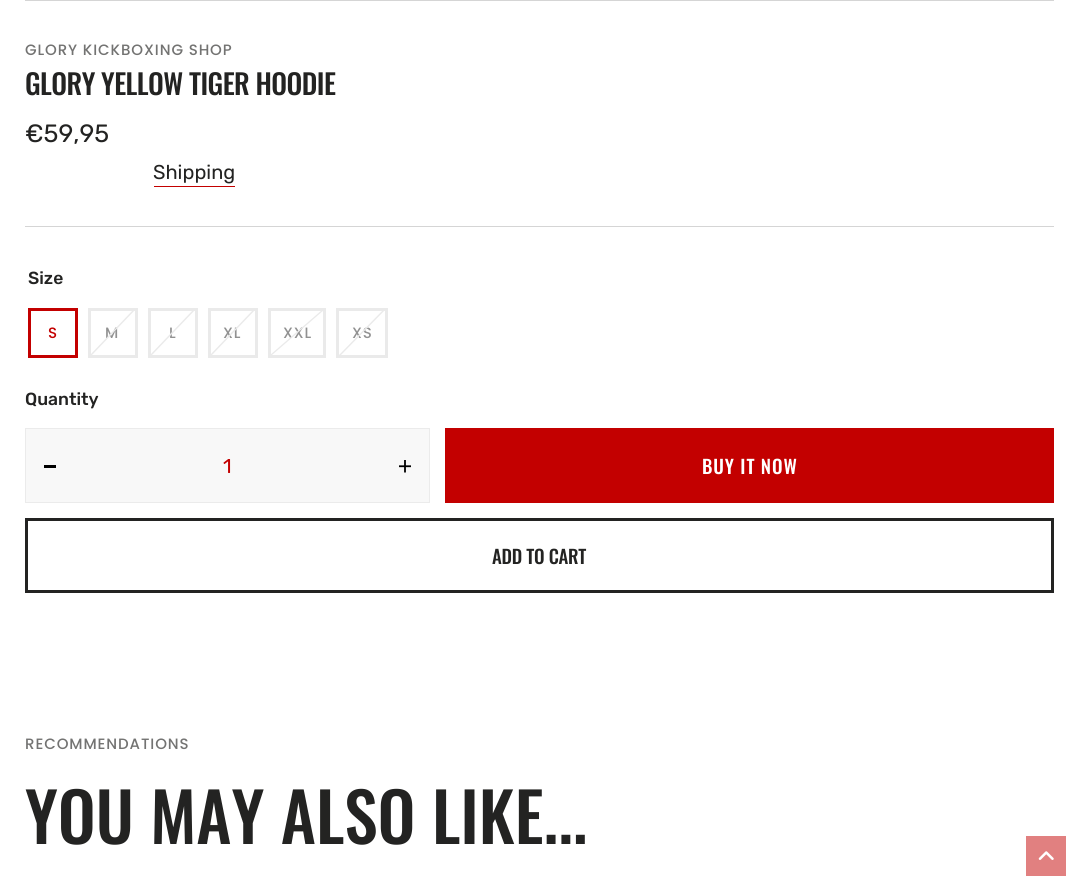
#include <cairo.h>
#include <math.h>
#include <stddef.h>


static void set_color(cairo_t *cr, unsigned color) {
    cairo_set_source_rgb(cr, (color >> 16) / 255.0, (color >> 8 & 255) / 255.0, (color & 255) / 255.0);
}

static void draw_text(cairo_t *cr, double x, double y, const char *s, const char *family, double size, int italic, int bold, unsigned color) {
    cairo_select_font_face(cr, family, italic ? CAIRO_FONT_SLANT_ITALIC : CAIRO_FONT_SLANT_NORMAL,
        bold ? CAIRO_FONT_WEIGHT_BOLD : CAIRO_FONT_WEIGHT_NORMAL);
    cairo_set_font_size(cr, size);
    set_color(cr, color);
    cairo_move_to(cr, x, y);
    cairo_show_text(cr, s);
}

static void draw_spaced(cairo_t *cr, double x, double y, const char *s, double letter, double word) {
    cairo_move_to(cr, x, y);
    while (*s) {
        char ch[5] = {0};
        int n = 0;
        do ch[n++] = *s++; while ((*s & 0xC0) == 0x80);
        cairo_show_text(cr, ch);
        cairo_rel_move_to(cr, letter + word * (*ch == ' '), 0);
    }
}

static void fill_rect(cairo_t *cr, double x, double y, double w, double h, unsigned color) {
    set_color(cr, color);
    cairo_rectangle(cr, x, y, w, h);
    cairo_fill(cr);
}

static void draw_image(cairo_t *cr, const char *path, double x, double y, double w, double h) {
    cairo_surface_t *image = cairo_image_surface_create_from_png(path);
    cairo_save(cr);
    cairo_set_source_surface(cr, image, x, y);
    cairo_rectangle(cr, x, y, w, h);
    cairo_fill(cr);
    cairo_restore(cr);
    cairo_surface_destroy(image);
}

int main(void) {
    cairo_surface_t *surface = cairo_image_surface_create(CAIRO_FORMAT_RGB24, 1078, 888);
    cairo_t *cr = cairo_create(surface);
    cairo_font_options_t *options = cairo_font_options_create();
    cairo_font_options_set_hint_metrics(options, CAIRO_HINT_METRICS_OFF);
    cairo_font_options_set_hint_style(options, CAIRO_HINT_STYLE_NONE);
    cairo_set_font_options(cr, options);
    cairo_set_miter_limit(cr, 4);
    set_color(cr, 0xFFFFFF);
    cairo_paint(cr);
    fill_rect(cr, 25, 0, 1029, 1, 0xD5D5D5);
    cairo_select_font_face(cr, "Poppins Medium", CAIRO_FONT_SLANT_NORMAL, CAIRO_FONT_WEIGHT_NORMAL);
    cairo_set_font_size(cr, 15);
    set_color(cr, 0x737372);
    draw_spaced(cr, 25, 55, "GLORY KICKBOXING SHOP", 0.9, 0);
    cairo_select_font_face(cr, "Oswald Medium", CAIRO_FONT_SLANT_NORMAL, CAIRO_FONT_WEIGHT_NORMAL);
    cairo_set_font_size(cr, 28);
    set_color(cr, 0x232322);
    draw_spaced(cr, 25, 95, "GLORY YELLOW TIGER HOODIE", -0.55, 0);
    draw_text(cr, 25, 142, "€59,95", "Rubik", 25, 0, 0, 0x232322);
    draw_text(cr, 153, 179, "Shipping", "Rubik", 20, 0, 0, 0x232322);
    fill_rect(cr, 154, 186, 81, 1, 0xC30000);
    fill_rect(cr, 25, 226, 1029, 1, 0xD5D5D5);
    draw_text(cr, 28, 284, "Size", "Rubik Medium", 17.5, 0, 0, 0x232322);
    cairo_rectangle(cr, 29.5, 309.5, 47, 47);
    set_color(cr, 0xC30000);
    cairo_set_line_width(cr, 3);
    cairo_stroke(cr);
    cairo_select_font_face(cr, "Poppins Medium", CAIRO_FONT_SLANT_NORMAL, CAIRO_FONT_WEIGHT_NORMAL);
    cairo_set_font_size(cr, 15);
    draw_spaced(cr, 48, 338, "S", 0.9, 0);
    cairo_rectangle(cr, 89.5, 309.5, 47, 47);
    set_color(cr, 0xEAEAEA);
    cairo_stroke(cr);
    set_color(cr, 0x919191);
    draw_spaced(cr, 105, 338, "M", 0.9, 0);
    set_color(cr, 0xEAEAEA);
    cairo_new_path(cr);
    cairo_move_to(cr, 135, 310);
    cairo_line_to(cr, 92, 355);
    cairo_line_to(cr, 90, 355);
    cairo_line_to(cr, 133, 310);
    cairo_close_path(cr);
    cairo_fill(cr);
    cairo_rectangle(cr, 149.5, 309.5, 47, 47);
    cairo_stroke(cr);
    set_color(cr, 0x919191);
    draw_spaced(cr, 169, 338, "L", 0.9, 0);
    set_color(cr, 0xEAEAEA);
    cairo_new_path(cr);
    cairo_move_to(cr, 195, 310);
    cairo_line_to(cr, 152, 355);
    cairo_line_to(cr, 150, 355);
    cairo_line_to(cr, 193, 310);
    cairo_close_path(cr);
    cairo_fill(cr);
    cairo_rectangle(cr, 209.5, 309.5, 47, 47);
    cairo_stroke(cr);
    set_color(cr, 0x919191);
    draw_spaced(cr, 223, 338, "XL", 0.9, 0);
    set_color(cr, 0xEAEAEA);
    cairo_new_path(cr);
    cairo_move_to(cr, 255, 310);
    cairo_line_to(cr, 212, 355);
    cairo_line_to(cr, 210, 355);
    cairo_line_to(cr, 253, 310);
    cairo_close_path(cr);
    cairo_fill(cr);
    cairo_rectangle(cr, 269.5, 309.5, 55, 47);
    cairo_stroke(cr);
    set_color(cr, 0x919191);
    draw_spaced(cr, 283, 338, "XXL", 0.9, 0);
    set_color(cr, 0xEAEAEA);
    cairo_new_path(cr);
    cairo_move_to(cr, 324, 310);
    cairo_line_to(cr, 272, 355);
    cairo_line_to(cr, 270, 355);
    cairo_line_to(cr, 322, 310);
    cairo_close_path(cr);
    cairo_fill(cr);
    cairo_rectangle(cr, 337.5, 309.5, 49, 47);
    cairo_stroke(cr);
    set_color(cr, 0x919191);
    draw_spaced(cr, 352, 338, "XS", 0.9, 0);
    set_color(cr, 0xEAEAEA);
    cairo_new_path(cr);
    cairo_move_to(cr, 385, 310);
    cairo_line_to(cr, 341, 355);
    cairo_line_to(cr, 339, 355);
    cairo_line_to(cr, 383, 310);
    cairo_close_path(cr);
    cairo_fill(cr);
    draw_text(cr, 25, 405, "Quantity", "Rubik Medium", 17.5, 0, 0, 0x232322);
    set_color(cr, 0xF8F8F8);
    cairo_rectangle(cr, 25.5, 428.5, 404, 74);
    cairo_fill_preserve(cr);
    set_color(cr, 0xEBEBEB);
    cairo_set_line_width(cr, 1);
    cairo_stroke(cr);
    fill_rect(cr, 44, 465, 12, 3, 0x000000);
    draw_text(cr, 223, 473, "1", "Rubik", 20, 0, 0, 0xC30000);
    draw_image(cr, "assets/img1.png", 399, 460, 12, 13);
    fill_rect(cr, 445, 428, 609, 75, 0xC30000);
    cairo_select_font_face(cr, "Oswald Medium", CAIRO_FONT_SLANT_NORMAL, CAIRO_FONT_WEIGHT_NORMAL);
    cairo_set_font_size(cr, 18.75);
    set_color(cr, 0xFFFFFF);
    draw_spaced(cr, 702, 474, "BUY IT NOW", 0.9, 0);
    cairo_rectangle(cr, 26.5, 519.5, 1026, 72);
    set_color(cr, 0x232322);
    cairo_set_line_width(cr, 3);
    cairo_stroke(cr);
    draw_spaced(cr, 492, 564, "ADD TO CART", -0.25, 0);
    cairo_select_font_face(cr, "Poppins Medium", CAIRO_FONT_SLANT_NORMAL, CAIRO_FONT_WEIGHT_NORMAL);
    cairo_set_font_size(cr, 15);
    set_color(cr, 0x737372);
    draw_spaced(cr, 25, 749, "RECOMMENDATIONS", 0.9, 0);
    draw_text(cr, 25, 844, "YOU MAY ALSO LIKE...", "Oswald Medium", 67.4, 0, 0, 0x232322);
    fill_rect(cr, 1026, 836, 40, 40, 0xE18080);
    draw_image(cr, "assets/img2.png", 1038, 851, 16, 9);
    cairo_surface_write_to_png(surface, "output.png");
    cairo_font_options_destroy(options);
    cairo_destroy(cr);
    cairo_surface_destroy(surface);
    return 0;
}
